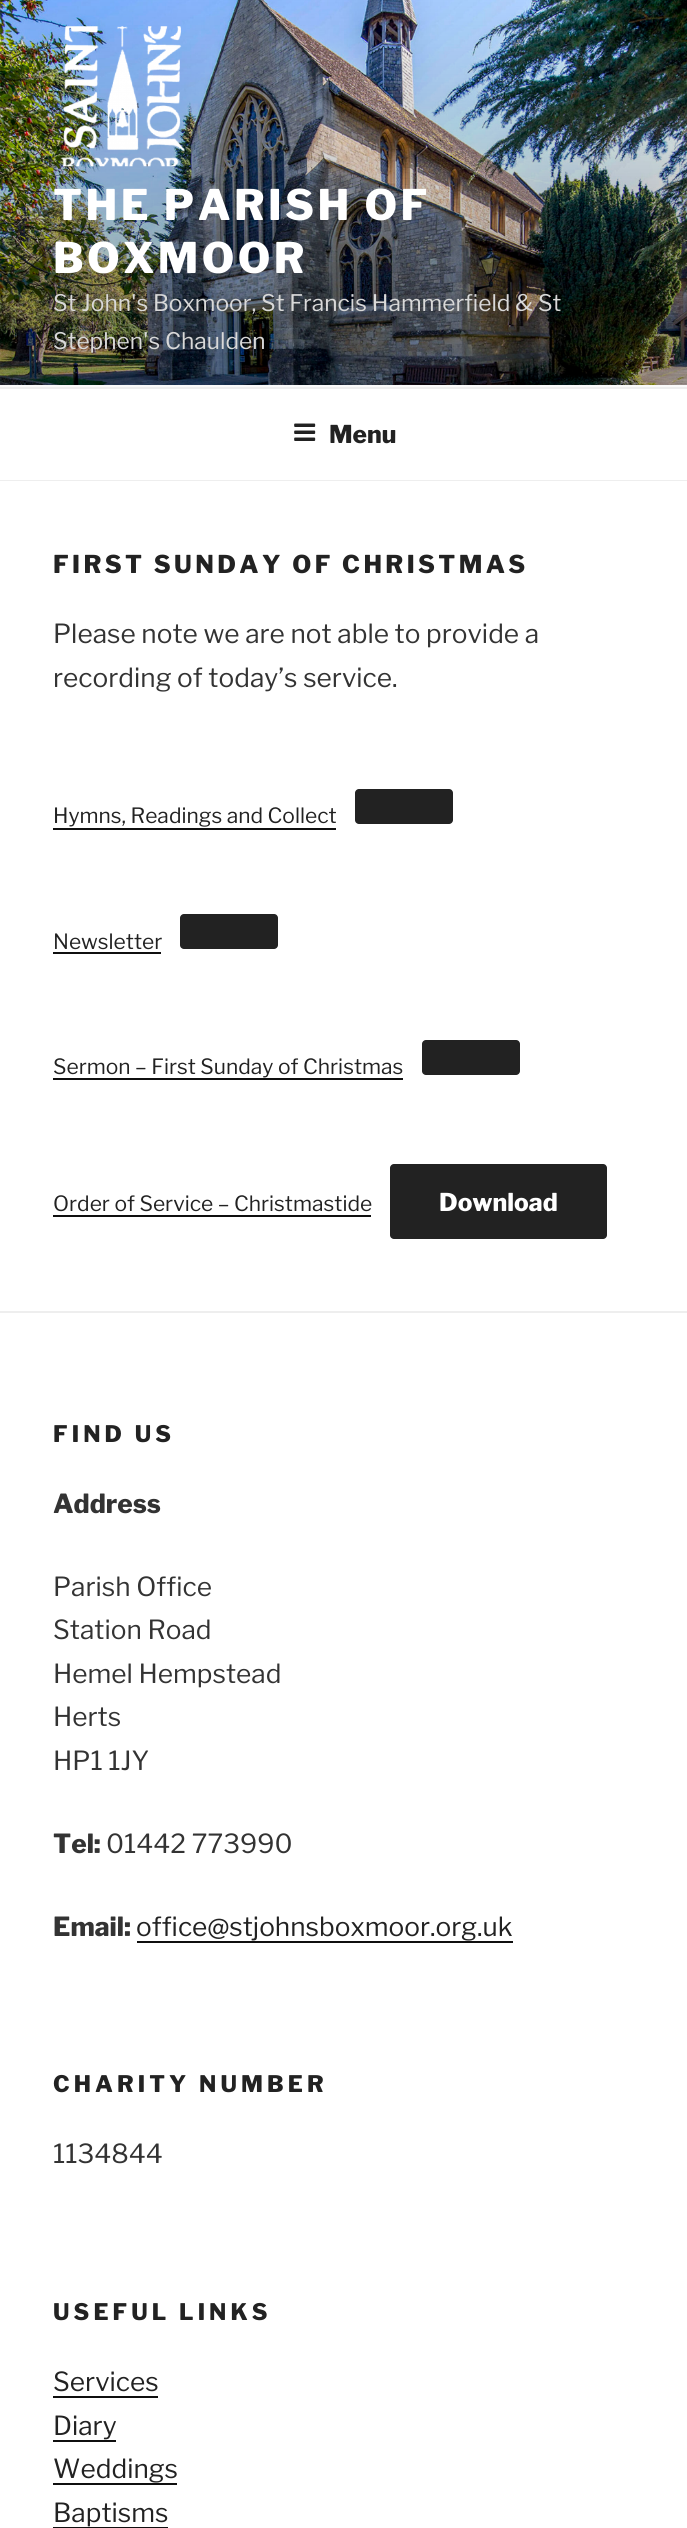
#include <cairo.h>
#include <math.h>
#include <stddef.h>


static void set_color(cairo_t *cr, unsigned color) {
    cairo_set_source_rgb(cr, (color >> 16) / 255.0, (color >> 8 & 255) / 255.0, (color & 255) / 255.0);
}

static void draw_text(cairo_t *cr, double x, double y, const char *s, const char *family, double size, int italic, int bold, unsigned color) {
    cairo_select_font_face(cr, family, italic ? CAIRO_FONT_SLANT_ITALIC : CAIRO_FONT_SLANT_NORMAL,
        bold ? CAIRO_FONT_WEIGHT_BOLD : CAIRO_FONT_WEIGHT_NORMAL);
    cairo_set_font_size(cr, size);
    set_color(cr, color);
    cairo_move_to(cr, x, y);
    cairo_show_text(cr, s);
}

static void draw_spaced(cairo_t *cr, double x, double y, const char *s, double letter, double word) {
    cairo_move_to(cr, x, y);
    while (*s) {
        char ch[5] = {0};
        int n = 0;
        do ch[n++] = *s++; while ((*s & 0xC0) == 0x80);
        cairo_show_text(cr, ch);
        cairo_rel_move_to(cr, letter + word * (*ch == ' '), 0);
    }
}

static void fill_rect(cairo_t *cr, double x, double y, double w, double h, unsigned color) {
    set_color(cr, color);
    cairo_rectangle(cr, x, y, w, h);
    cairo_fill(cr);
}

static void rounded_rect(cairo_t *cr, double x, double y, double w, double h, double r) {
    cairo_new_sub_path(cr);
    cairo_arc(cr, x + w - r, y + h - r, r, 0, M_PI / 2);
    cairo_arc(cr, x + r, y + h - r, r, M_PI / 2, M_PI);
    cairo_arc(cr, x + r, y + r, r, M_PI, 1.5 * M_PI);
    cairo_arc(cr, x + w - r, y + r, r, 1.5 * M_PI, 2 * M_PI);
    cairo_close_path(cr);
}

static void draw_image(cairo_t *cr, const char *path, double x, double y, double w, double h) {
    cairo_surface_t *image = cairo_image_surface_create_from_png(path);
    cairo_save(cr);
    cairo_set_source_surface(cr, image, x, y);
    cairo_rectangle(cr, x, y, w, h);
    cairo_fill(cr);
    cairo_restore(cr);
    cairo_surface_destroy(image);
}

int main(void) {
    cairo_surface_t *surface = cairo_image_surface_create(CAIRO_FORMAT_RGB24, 687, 2528);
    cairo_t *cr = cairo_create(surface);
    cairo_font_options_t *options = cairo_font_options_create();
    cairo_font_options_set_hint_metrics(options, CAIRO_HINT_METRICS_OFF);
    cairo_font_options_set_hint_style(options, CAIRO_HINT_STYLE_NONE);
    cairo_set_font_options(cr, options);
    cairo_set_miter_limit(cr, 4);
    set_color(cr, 0xFAFAFA);
    cairo_paint(cr);
    draw_image(cr, "assets/img1.png", 0, 0, 687, 385);
    draw_image(cr, "assets/img2.png", 60, 26, 125, 141);
    cairo_select_font_face(cr, "Libre Franklin Thin", CAIRO_FONT_SLANT_NORMAL, CAIRO_FONT_WEIGHT_NORMAL);
    cairo_set_font_size(cr, 42);
    set_color(cr, 0xFFFFFF);
    draw_spaced(cr, 53, 220, "THE PARISH OF", 3.4, 0);
    draw_spaced(cr, 53, 273, "BOXMOOR", 3.4, 0);
    draw_text(cr, 53, 311, "St John's Boxmoor, St Francis Hammerfield & St", "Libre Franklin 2 Thin", 22.75, 0, 0, 0xD9D9D9);
    draw_text(cr, 53, 349, "Stephen's Chaulden", "Libre Franklin 2 Thin", 22.75, 0, 0, 0xD9D9D9);
    fill_rect(cr, 0, 389, 687, 91, 0xFFFFFF);
    fill_rect(cr, 0, 387, 687, 2, 0xEEEEEE);
    fill_rect(cr, 0, 480, 687, 1, 0xEEEEEE);
    draw_image(cr, "assets/img3.png", 294, 423, 22, 18);
    draw_text(cr, 329, 443, "Menu", "Libre Franklin Thin", 24.5, 0, 0, 0x222222);
    fill_rect(cr, 0, 481, 687, 2047, 0xFFFFFF);
    set_color(cr, 0x222222);
    draw_spaced(cr, 53, 573, "FIRST SUNDAY OF CHRISTMAS", 3.4, 0);
    draw_text(cr, 53, 643, "Please note we are not able to provide a", "Libre Franklin 2 Thin", 26.25, 0, 0, 0x333333);
    draw_text(cr, 53, 687, "recording of today’s service.", "Libre Franklin 2 Thin", 26.25, 0, 0, 0x333333);
    draw_text(cr, 53, 823, "Hymns, Readings and Collect", "Libre Franklin 2 Thin", 21, 0, 0, 0x222222);
    fill_rect(cr, 53, 828, 283, 2, 0x0F0F0F);
    set_color(cr, 0x222222);
    rounded_rect(cr, 355, 789, 98, 35, 4);
    cairo_fill(cr);
    draw_text(cr, 53, 949, "Newsletter", "Libre Franklin 2 Thin", 21, 0, 0, 0x222222);
    fill_rect(cr, 53, 952, 108, 2, 0x0F0F0F);
    set_color(cr, 0x222222);
    rounded_rect(cr, 180, 914, 98, 35, 4);
    cairo_fill(cr);
    draw_text(cr, 53, 1074, "Sermon – First Sunday of Christmas", "Libre Franklin 2 Thin", 21, 0, 0, 0x222222);
    fill_rect(cr, 53, 1078, 350, 2, 0x0F0F0F);
    set_color(cr, 0x222222);
    rounded_rect(cr, 422, 1040, 98, 35, 4);
    cairo_fill(cr);
    draw_text(cr, 53, 1211, "Order of Service – Christmastide", "Libre Franklin 2 Thin", 21, 0, 0, 0x222222);
    fill_rect(cr, 53, 1215, 318, 2, 0x0F0F0F);
    set_color(cr, 0x222222);
    rounded_rect(cr, 390, 1164, 217, 75, 4);
    cairo_fill(cr);
    draw_text(cr, 439, 1211, "Download", "Libre Franklin Thin", 24.5, 0, 0, 0xFFFFFF);
    fill_rect(cr, 0, 1311, 687, 2, 0xEEEEEE);
    cairo_set_font_size(cr, 22.75);
    set_color(cr, 0x222222);
    draw_spaced(cr, 53, 1442, "FIND US", 4.1, 0);
    draw_text(cr, 53, 1513, "Address", "Libre Franklin Thin", 26.25, 0, 0, 0x333333);
    draw_text(cr, 53, 1596, "Parish Office", "Libre Franklin 2 Thin", 26.25, 0, 0, 0x333333);
    draw_text(cr, 53, 1639, "Station Road", "Libre Franklin 2 Thin", 26.25, 0, 0, 0x333333);
    draw_text(cr, 53, 1683, "Hemel Hempstead", "Libre Franklin 2 Thin", 26.25, 0, 0, 0x333333);
    draw_text(cr, 53, 1726, "Herts", "Libre Franklin 2 Thin", 26.25, 0, 0, 0x333333);
    draw_text(cr, 53, 1770, "HP1 1JY", "Libre Franklin 2 Thin", 26.25, 0, 0, 0x333333);
    draw_text(cr, 53, 1853, "Tel:", "Libre Franklin Thin", 26.25, 0, 0, 0x333333);
    draw_text(cr, 106, 1853, "01442 773990", "Libre Franklin 2 Thin", 26.25, 0, 0, 0x333333);
    draw_text(cr, 53, 1936, "Email:", "Libre Franklin Thin", 26.25, 0, 0, 0x333333);
    draw_text(cr, 136, 1936, "office@stjohnsboxmoor.org.uk", "Libre Franklin 2 Thin", 26.25, 0, 0, 0x222222);
    fill_rect(cr, 137, 1941, 376, 2, 0x0F0F0F);
    cairo_select_font_face(cr, "Libre Franklin Thin", CAIRO_FONT_SLANT_NORMAL, CAIRO_FONT_WEIGHT_NORMAL);
    cairo_set_font_size(cr, 22.75);
    set_color(cr, 0x222222);
    draw_spaced(cr, 53, 2092, "CHARITY NUMBER", 4.1, 0);
    draw_text(cr, 53, 2163, "1134844", "Libre Franklin 2 Thin", 26.25, 0, 0, 0x333333);
    cairo_select_font_face(cr, "Libre Franklin Thin", CAIRO_FONT_SLANT_NORMAL, CAIRO_FONT_WEIGHT_NORMAL);
    cairo_set_font_size(cr, 22.75);
    set_color(cr, 0x222222);
    draw_spaced(cr, 53, 2320, "USEFUL LINKS", 4.1, 0);
    draw_text(cr, 53, 2391, "Services", "Libre Franklin 2 Thin", 26.25, 0, 0, 0x222222);
    fill_rect(cr, 53, 2396, 105, 2, 0x0F0F0F);
    draw_text(cr, 53, 2435, "Diary", "Libre Franklin 2 Thin", 26.25, 0, 0, 0x222222);
    fill_rect(cr, 53, 2440, 63, 2, 0x0F0F0F);
    draw_text(cr, 53, 2478, "Weddings", "Libre Franklin 2 Thin", 26.25, 0, 0, 0x222222);
    fill_rect(cr, 53, 2483, 124, 2, 0x0F0F0F);
    draw_text(cr, 53, 2522, "Baptisms", "Libre Franklin 2 Thin", 26.25, 0, 0, 0x222222);
    fill_rect(cr, 53, 2527, 115, 1, 0x0F0F0F);
    cairo_surface_write_to_png(surface, "output.png");
    cairo_font_options_destroy(options);
    cairo_destroy(cr);
    cairo_surface_destroy(surface);
    return 0;
}
